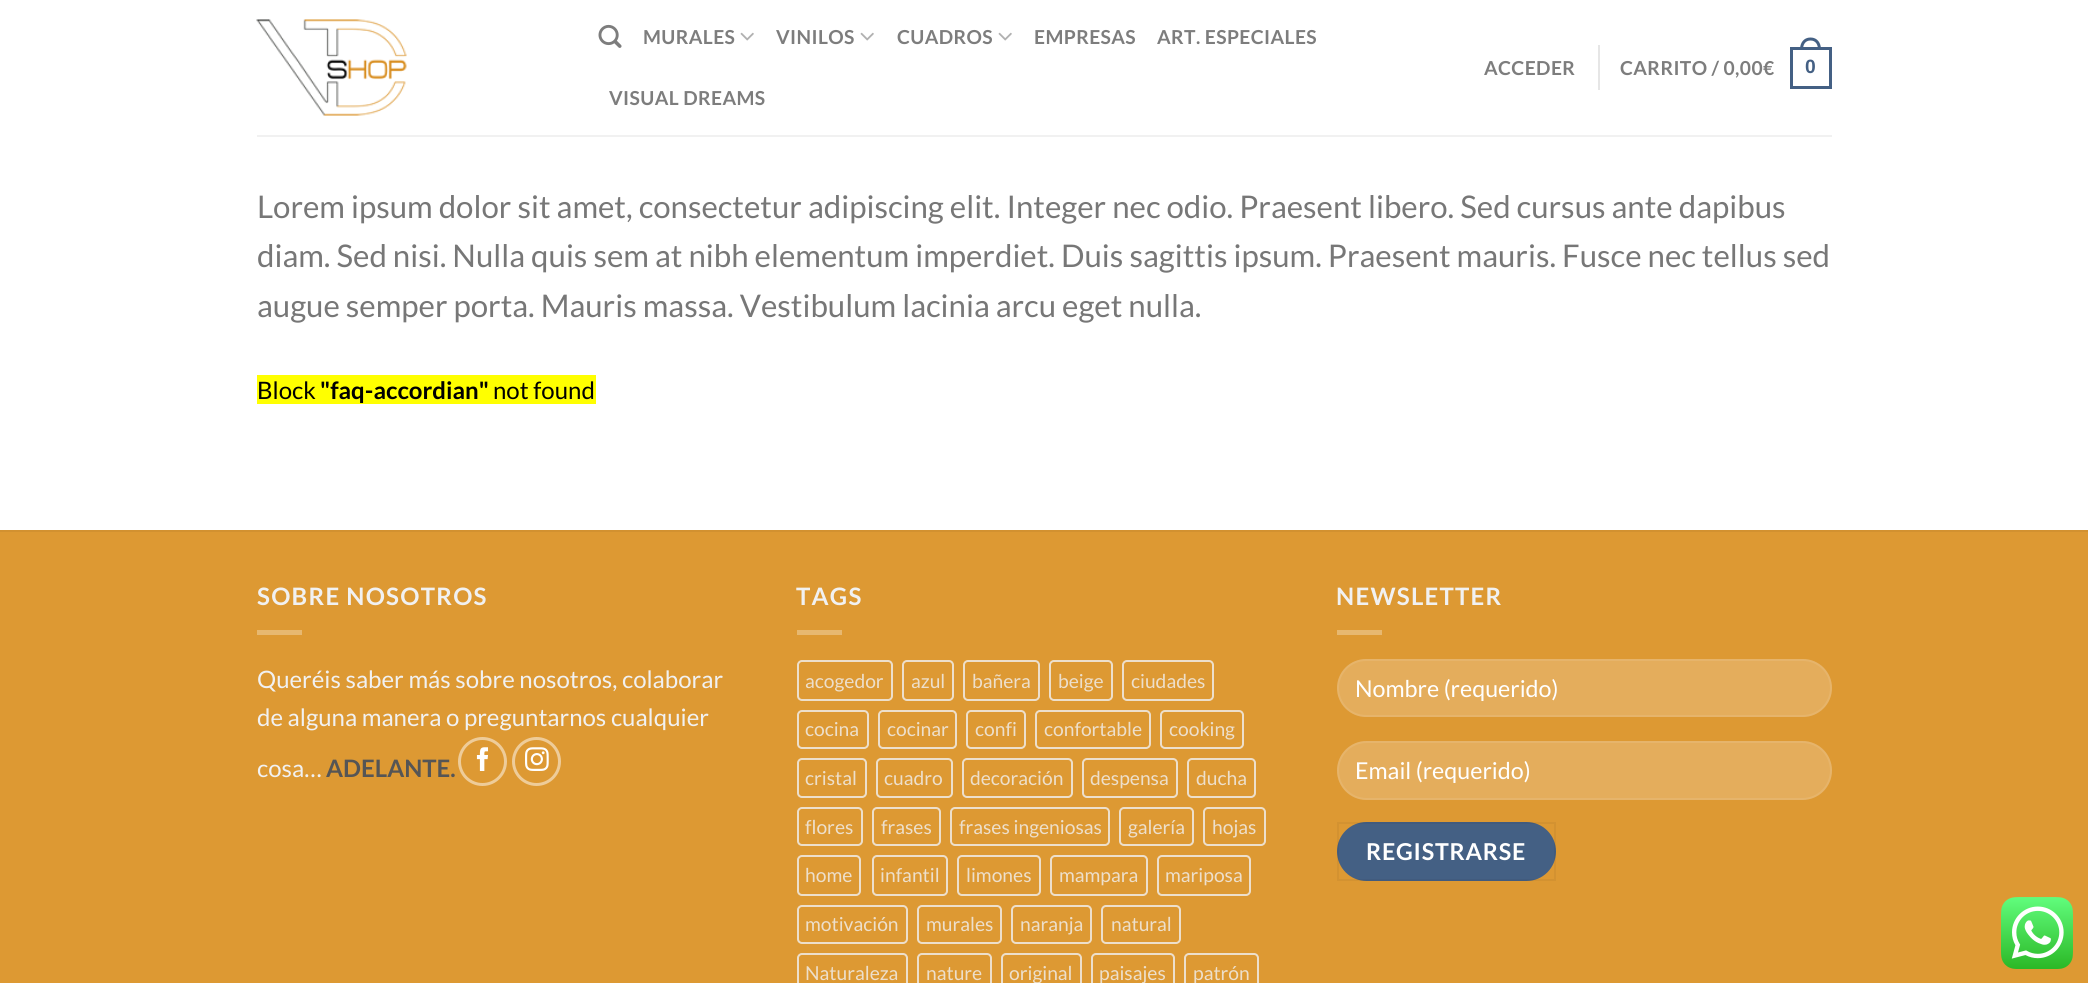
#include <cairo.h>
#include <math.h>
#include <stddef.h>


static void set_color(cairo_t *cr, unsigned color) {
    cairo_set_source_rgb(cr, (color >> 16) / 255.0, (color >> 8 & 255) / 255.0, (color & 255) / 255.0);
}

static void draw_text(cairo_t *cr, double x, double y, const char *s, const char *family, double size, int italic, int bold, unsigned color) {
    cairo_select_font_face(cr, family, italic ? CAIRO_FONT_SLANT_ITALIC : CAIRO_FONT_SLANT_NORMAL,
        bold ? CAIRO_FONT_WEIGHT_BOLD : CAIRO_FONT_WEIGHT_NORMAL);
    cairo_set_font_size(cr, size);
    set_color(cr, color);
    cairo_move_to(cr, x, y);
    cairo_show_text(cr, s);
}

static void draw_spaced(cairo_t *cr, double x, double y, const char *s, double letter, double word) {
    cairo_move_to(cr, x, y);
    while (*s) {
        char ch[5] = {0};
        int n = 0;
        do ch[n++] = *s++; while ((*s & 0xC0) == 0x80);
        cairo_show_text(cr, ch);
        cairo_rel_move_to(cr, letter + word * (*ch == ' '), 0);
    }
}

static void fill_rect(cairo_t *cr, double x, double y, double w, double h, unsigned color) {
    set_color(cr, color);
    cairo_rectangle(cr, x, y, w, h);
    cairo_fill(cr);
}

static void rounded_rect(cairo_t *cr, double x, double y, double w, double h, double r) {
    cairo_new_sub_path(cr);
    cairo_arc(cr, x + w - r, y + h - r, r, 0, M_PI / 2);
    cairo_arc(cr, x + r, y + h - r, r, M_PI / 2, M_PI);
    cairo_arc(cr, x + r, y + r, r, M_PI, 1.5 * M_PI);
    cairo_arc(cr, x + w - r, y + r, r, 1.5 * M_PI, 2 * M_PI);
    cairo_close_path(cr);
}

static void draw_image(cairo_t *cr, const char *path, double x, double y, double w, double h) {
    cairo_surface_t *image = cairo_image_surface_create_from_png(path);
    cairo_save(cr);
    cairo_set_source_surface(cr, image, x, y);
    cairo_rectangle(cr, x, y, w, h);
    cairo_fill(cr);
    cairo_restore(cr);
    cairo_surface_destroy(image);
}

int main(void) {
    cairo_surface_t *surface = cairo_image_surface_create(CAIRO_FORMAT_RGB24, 2088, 983);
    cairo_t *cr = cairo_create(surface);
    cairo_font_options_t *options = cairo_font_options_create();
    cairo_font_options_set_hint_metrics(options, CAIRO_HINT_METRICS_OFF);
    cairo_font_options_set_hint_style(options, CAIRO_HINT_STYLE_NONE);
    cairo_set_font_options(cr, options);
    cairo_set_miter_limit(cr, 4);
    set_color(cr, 0xFFFFFF);
    cairo_paint(cr);
    draw_image(cr, "assets/img1.png", 256, 19, 151, 97);
    draw_image(cr, "assets/img2.png", 598, 24, 24, 24);
    cairo_select_font_face(cr, "Lato", CAIRO_FONT_SLANT_NORMAL, CAIRO_FONT_WEIGHT_BOLD);
    cairo_set_font_size(cr, 19.25);
    set_color(cr, 0x7D7D7D);
    draw_spaced(cr, 643, 44, "MURALES", 0.4, 0);
    draw_image(cr, "assets/img3.png", 740, 32, 14, 9);
    draw_spaced(cr, 776, 44, "VINILOS", 0.4, 0);
    draw_image(cr, "assets/img3.png", 860, 32, 14, 9);
    draw_spaced(cr, 897, 44, "CUADROS", 0.4, 0);
    draw_image(cr, "assets/img3.png", 998, 32, 14, 9);
    draw_spaced(cr, 1034, 44, "EMPRESAS", 0.4, 0);
    draw_spaced(cr, 1157, 44, "ART. ESPECIALES", 0.4, 0);
    draw_spaced(cr, 609, 105, "VISUAL DREAMS", 0.4, 0);
    draw_spaced(cr, 1484, 75, "ACCEDER", 0.4, 0);
    fill_rect(cr, 1598, 45, 2, 45, 0xE6E6E6);
    set_color(cr, 0x7D7D7D);
    draw_spaced(cr, 1620, 75, "CARRITO / 0,00€", 0.4, 0);
    cairo_rectangle(cr, 1791.5, 48.5, 39, 39);
    set_color(cr, 0x446084);
    cairo_set_line_width(cr, 3);
    cairo_stroke(cr);
    cairo_set_fill_rule(cr, CAIRO_FILL_RULE_EVEN_ODD);
    cairo_new_path(cr);
    cairo_move_to(cr, 1810.5, 37.5);
    cairo_curve_to(cr, 1817.5, 37.5, 1821, 43, 1821, 49.5);
    cairo_line_to(cr, 1800, 49.5);
    cairo_curve_to(cr, 1800, 43, 1803.5, 37.5, 1810.5, 37.5);
    cairo_close_path(cr);
    cairo_move_to(cr, 1810.5, 40.5);
    cairo_curve_to(cr, 1816, 40.5, 1818, 45, 1818, 49.5);
    cairo_line_to(cr, 1803, 49.5);
    cairo_curve_to(cr, 1803, 45, 1805, 40.5, 1810.5, 40.5);
    cairo_close_path(cr);
    cairo_fill(cr);
    cairo_select_font_face(cr, "Liberation Sans", CAIRO_FONT_SLANT_NORMAL, CAIRO_FONT_WEIGHT_BOLD);
    draw_spaced(cr, 1805, 73, "0", 0.4, 0);
    fill_rect(cr, 257, 135, 1575, 2, 0xF1F1F1);
    draw_text(cr, 257, 218, "Lorem ipsum dolor sit amet, consectetur adipiscing elit. Integer nec odio. Praesent libero. Sed cursus ante dapibus", "Lato", 31.2, 0, 0, 0x777777);
    draw_text(cr, 257, 267, "diam. Sed nisi. Nulla quis sem at nibh elementum imperdiet. Duis sagittis ipsum. Praesent mauris. Fusce nec tellus sed", "Lato", 31.2, 0, 0, 0x777777);
    draw_text(cr, 257, 317, "augue semper porta. Mauris massa. Vestibulum lacinia arcu eget nulla.", "Lato", 31.2, 0, 0, 0x777777);
    fill_rect(cr, 257, 375, 339, 29, 0xFFFF00);
    draw_text(cr, 257, 399, "Block", "Lato", 24, 0, 0, 0x000000);
    draw_text(cr, 320, 399, "\"faq-accordian\"", "Lato", 24, 0, 1, 0x000000);
    draw_text(cr, 493, 399, "not found", "Lato", 24, 0, 0, 0x000000);
    fill_rect(cr, 0, 532, 2088, 451, 0xDD9933);
    fill_rect(cr, 0, 530, 2088, 2, 0xD29130);
    cairo_select_font_face(cr, "Lato", CAIRO_FONT_SLANT_NORMAL, CAIRO_FONT_WEIGHT_BOLD);
    set_color(cr, 0xF1F1F1);
    draw_spaced(cr, 257, 605, "SOBRE NOSOTROS", 1.25, 0);
    fill_rect(cr, 257, 630, 45, 5, 0xE7B870);
    draw_text(cr, 257, 688, "Queréis saber más sobre nosotros, colaborar", "Lato", 24, 0, 0, 0xF1F1F1);
    draw_text(cr, 257, 726, "de alguna manera o preguntarnos cualquier", "Lato", 24, 0, 0, 0xF1F1F1);
    draw_text(cr, 257, 777, "cosa…", "Lato", 24, 0, 0, 0xF1F1F1);
    draw_text(cr, 326, 777, "ADELANTE.", "Lato", 24, 0, 1, 0x555555);
    cairo_new_path(cr);
    cairo_arc(cr, 482.5, 761.5, 23, 0, 2 * M_PI);
    set_color(cr, 0xEECC99);
    cairo_stroke(cr);
    draw_image(cr, "assets/img4.png", 476, 747, 12, 24);
    cairo_arc(cr, 536.5, 761.5, 23, 0, 2 * M_PI);
    cairo_stroke(cr);
    draw_image(cr, "assets/img5.png", 525, 747, 24, 24);
    set_color(cr, 0xF1F1F1);
    draw_spaced(cr, 796, 605, "TAGS", 1.25, 0);
    fill_rect(cr, 797, 630, 45, 5, 0xE7B870);
    rounded_rect(cr, 798, 661, 94, 39, 4);
    set_color(cr, 0xEDDFCB);
    cairo_set_line_width(cr, 2);
    cairo_stroke(cr);
    draw_text(cr, 805, 688, "acogedor", "Lato", 19.25, 0, 0, 0xEDDFCB);
    rounded_rect(cr, 903, 661, 50, 39, 4);
    cairo_stroke(cr);
    draw_text(cr, 911, 688, "azul", "Lato", 19.25, 0, 0, 0xEDDFCB);
    rounded_rect(cr, 964, 661, 75, 39, 4);
    cairo_stroke(cr);
    draw_text(cr, 972, 688, "bañera", "Lato", 19.25, 0, 0, 0xEDDFCB);
    rounded_rect(cr, 1050, 661, 62, 39, 4);
    cairo_stroke(cr);
    draw_text(cr, 1058, 688, "beige", "Lato", 19.25, 0, 0, 0xEDDFCB);
    rounded_rect(cr, 1123, 661, 90, 39, 4);
    cairo_stroke(cr);
    draw_text(cr, 1131, 688, "ciudades", "Lato", 19.25, 0, 0, 0xEDDFCB);
    rounded_rect(cr, 798, 711, 70, 37, 4);
    cairo_stroke(cr);
    draw_text(cr, 805, 736, "cocina", "Lato", 19.25, 0, 0, 0xEDDFCB);
    rounded_rect(cr, 879, 711, 77, 37, 4);
    cairo_stroke(cr);
    draw_text(cr, 887, 736, "cocinar", "Lato", 19.25, 0, 0, 0xEDDFCB);
    rounded_rect(cr, 967, 711, 58, 37, 4);
    cairo_stroke(cr);
    draw_text(cr, 975, 736, "confi", "Lato", 19.25, 0, 0, 0xEDDFCB);
    rounded_rect(cr, 1036, 711, 114, 37, 4);
    cairo_stroke(cr);
    draw_text(cr, 1044, 736, "confortable", "Lato", 19.25, 0, 0, 0xEDDFCB);
    rounded_rect(cr, 1161, 711, 82, 37, 4);
    cairo_stroke(cr);
    draw_text(cr, 1169, 736, "cooking", "Lato", 19.25, 0, 0, 0xEDDFCB);
    rounded_rect(cr, 798, 759, 68, 38, 4);
    cairo_stroke(cr);
    draw_text(cr, 805, 785, "cristal", "Lato", 19.25, 0, 0, 0xEDDFCB);
    rounded_rect(cr, 877, 759, 75, 38, 4);
    cairo_stroke(cr);
    draw_text(cr, 884, 785, "cuadro", "Lato", 19.25, 0, 0, 0xEDDFCB);
    rounded_rect(cr, 963, 759, 109, 38, 4);
    cairo_stroke(cr);
    draw_text(cr, 970, 785, "decoración", "Lato", 19.25, 0, 0, 0xEDDFCB);
    rounded_rect(cr, 1083, 759, 94, 38, 4);
    cairo_stroke(cr);
    draw_text(cr, 1090, 785, "despensa", "Lato", 19.25, 0, 0, 0xEDDFCB);
    rounded_rect(cr, 1188, 759, 67, 38, 4);
    cairo_stroke(cr);
    draw_text(cr, 1196, 785, "ducha", "Lato", 19.25, 0, 0, 0xEDDFCB);
    rounded_rect(cr, 798, 808, 64, 37, 4);
    cairo_stroke(cr);
    draw_text(cr, 805, 834, "flores", "Lato", 19.25, 0, 0, 0xEDDFCB);
    rounded_rect(cr, 873, 808, 67, 37, 4);
    cairo_stroke(cr);
    draw_text(cr, 881, 834, "frases", "Lato", 19.25, 0, 0, 0xEDDFCB);
    rounded_rect(cr, 951, 808, 158, 37, 4);
    cairo_stroke(cr);
    draw_text(cr, 959, 834, "frases ingeniosas", "Lato", 19.25, 0, 0, 0xEDDFCB);
    rounded_rect(cr, 1120, 808, 73, 37, 4);
    cairo_stroke(cr);
    draw_text(cr, 1128, 834, "galería", "Lato", 19.25, 0, 0, 0xEDDFCB);
    rounded_rect(cr, 1204, 808, 61, 37, 4);
    cairo_stroke(cr);
    draw_text(cr, 1212, 834, "hojas", "Lato", 19.25, 0, 0, 0xEDDFCB);
    rounded_rect(cr, 798, 856, 62, 39, 4);
    cairo_stroke(cr);
    draw_text(cr, 805, 882, "home", "Lato", 19.25, 0, 0, 0xEDDFCB);
    rounded_rect(cr, 873, 856, 74, 39, 4);
    cairo_stroke(cr);
    draw_text(cr, 880, 882, "infantil", "Lato", 19.25, 0, 0, 0xEDDFCB);
    rounded_rect(cr, 958, 856, 82, 39, 4);
    cairo_stroke(cr);
    draw_text(cr, 966, 882, "limones", "Lato", 19.25, 0, 0, 0xEDDFCB);
    rounded_rect(cr, 1051, 856, 96, 39, 4);
    cairo_stroke(cr);
    draw_text(cr, 1059, 882, "mampara", "Lato", 19.25, 0, 0, 0xEDDFCB);
    rounded_rect(cr, 1158, 856, 92, 39, 4);
    cairo_stroke(cr);
    draw_text(cr, 1165, 882, "mariposa", "Lato", 19.25, 0, 0, 0xEDDFCB);
    rounded_rect(cr, 798, 906, 109, 37, 4);
    cairo_stroke(cr);
    draw_text(cr, 805, 931, "motivación", "Lato", 19.25, 0, 0, 0xEDDFCB);
    rounded_rect(cr, 918, 906, 83, 37, 4);
    cairo_stroke(cr);
    draw_text(cr, 926, 931, "murales", "Lato", 19.25, 0, 0, 0xEDDFCB);
    rounded_rect(cr, 1012, 906, 79, 37, 4);
    cairo_stroke(cr);
    draw_text(cr, 1020, 931, "naranja", "Lato", 19.25, 0, 0, 0xEDDFCB);
    rounded_rect(cr, 1102, 906, 78, 37, 4);
    cairo_stroke(cr);
    draw_text(cr, 1111, 931, "natural", "Lato", 19.25, 0, 0, 0xEDDFCB);
    rounded_rect(cr, 798, 954, 109, 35, 4);
    cairo_stroke(cr);
    draw_text(cr, 805, 980, "Naturaleza", "Lato", 19.25, 0, 0, 0xEDDFCB);
    rounded_rect(cr, 918, 954, 73, 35, 4);
    cairo_stroke(cr);
    draw_text(cr, 926, 980, "nature", "Lato", 19.25, 0, 0, 0xEDDFCB);
    rounded_rect(cr, 1002, 954, 79, 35, 4);
    cairo_stroke(cr);
    draw_text(cr, 1009, 980, "original", "Lato", 19.25, 0, 0, 0xEDDFCB);
    rounded_rect(cr, 1092, 954, 82, 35, 4);
    cairo_stroke(cr);
    draw_text(cr, 1099, 980, "paisajes", "Lato", 19.25, 0, 0, 0xEDDFCB);
    rounded_rect(cr, 1185, 954, 73, 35, 4);
    cairo_stroke(cr);
    draw_text(cr, 1193, 980, "patrón", "Lato", 19.25, 0, 0, 0xEDDFCB);
    cairo_select_font_face(cr, "Lato", CAIRO_FONT_SLANT_NORMAL, CAIRO_FONT_WEIGHT_BOLD);
    cairo_set_font_size(cr, 24);
    set_color(cr, 0xF1F1F1);
    draw_spaced(cr, 1336, 605, "NEWSLETTER", 1.25, 0);
    fill_rect(cr, 1337, 630, 45, 5, 0xE7B870);
    set_color(cr, 0xE4AD5C);
    rounded_rect(cr, 1337, 659, 495, 58, 29);
    cairo_fill(cr);
    rounded_rect(cr, 1338, 660, 493, 56, 28);
    cairo_set_source_rgba(cr, 1, 1, 1, 0.09);
    cairo_stroke(cr);
    draw_text(cr, 1355, 697, "Nombre (requerido)", "Lato", 23.25, 0, 0, 0xFFFFFF);
    set_color(cr, 0xE4AD5C);
    rounded_rect(cr, 1337, 741, 495, 59, 29.5);
    cairo_fill(cr);
    rounded_rect(cr, 1338, 742, 493, 57, 28.5);
    cairo_set_source_rgba(cr, 1, 1, 1, 0.09);
    cairo_stroke(cr);
    draw_text(cr, 1355, 779, "Email (requerido)", "Lato", 23.25, 0, 0, 0xFFFFFF);
    set_color(cr, 0x446084);
    rounded_rect(cr, 1337, 822, 219, 59, 29.5);
    cairo_fill(cr);
    cairo_rectangle(cr, 1338, 823, 217, 57);
    cairo_set_source_rgba(cr, 0, 0, 0, 0.05);
    cairo_stroke(cr);
    cairo_select_font_face(cr, "Lato", CAIRO_FONT_SLANT_NORMAL, CAIRO_FONT_WEIGHT_BOLD);
    set_color(cr, 0xFFFFFF);
    draw_spaced(cr, 1366, 860, "REGISTRARSE", 0.75, 0);
    draw_image(cr, "assets/img6.png", 2001, 897, 72, 72);
    cairo_surface_write_to_png(surface, "output.png");
    cairo_font_options_destroy(options);
    cairo_destroy(cr);
    cairo_surface_destroy(surface);
    return 0;
}
